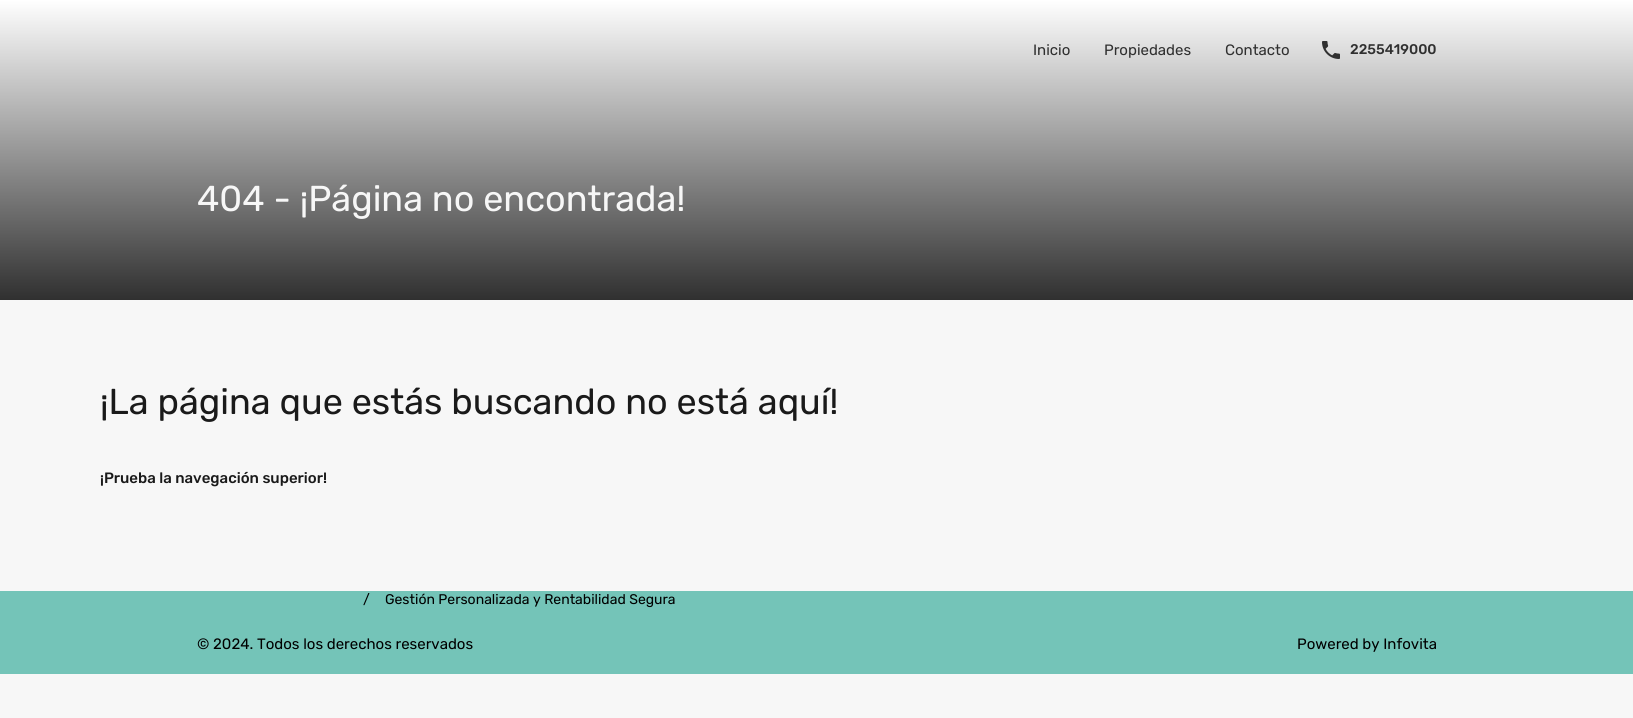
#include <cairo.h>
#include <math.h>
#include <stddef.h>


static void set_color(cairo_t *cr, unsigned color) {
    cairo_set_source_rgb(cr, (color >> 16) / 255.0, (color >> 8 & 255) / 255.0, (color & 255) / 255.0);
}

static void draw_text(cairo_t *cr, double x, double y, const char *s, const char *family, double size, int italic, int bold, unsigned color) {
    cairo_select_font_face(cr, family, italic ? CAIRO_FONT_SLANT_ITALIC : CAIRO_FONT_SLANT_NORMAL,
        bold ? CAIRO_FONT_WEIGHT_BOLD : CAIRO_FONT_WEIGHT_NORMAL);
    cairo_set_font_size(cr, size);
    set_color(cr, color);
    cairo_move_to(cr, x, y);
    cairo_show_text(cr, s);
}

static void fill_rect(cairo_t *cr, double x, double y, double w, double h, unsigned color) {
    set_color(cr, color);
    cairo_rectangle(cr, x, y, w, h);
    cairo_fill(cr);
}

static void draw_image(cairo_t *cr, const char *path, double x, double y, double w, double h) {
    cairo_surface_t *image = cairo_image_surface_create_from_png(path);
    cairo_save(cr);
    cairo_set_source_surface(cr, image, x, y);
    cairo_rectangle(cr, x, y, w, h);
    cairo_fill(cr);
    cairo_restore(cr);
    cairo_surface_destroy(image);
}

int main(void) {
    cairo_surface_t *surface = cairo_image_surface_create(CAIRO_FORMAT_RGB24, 1633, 718);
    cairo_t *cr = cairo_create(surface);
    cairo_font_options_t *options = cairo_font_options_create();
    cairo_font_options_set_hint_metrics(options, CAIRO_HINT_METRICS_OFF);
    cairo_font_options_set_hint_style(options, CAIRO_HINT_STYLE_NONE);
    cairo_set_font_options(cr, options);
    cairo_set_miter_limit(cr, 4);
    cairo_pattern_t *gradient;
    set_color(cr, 0xF7F7F7);
    cairo_paint(cr);
    gradient = cairo_pattern_create_linear(817, 0, 817, 300);
    cairo_pattern_add_color_stop_rgba(gradient, 0, 1, 1, 1, 1);
    cairo_pattern_add_color_stop_rgba(gradient, 1, 0.188, 0.188, 0.188, 1);
    cairo_set_source(cr, gradient);
    cairo_pattern_destroy(gradient);
    cairo_rectangle(cr, 0, 0, 1633, 300);
    cairo_fill(cr);
    draw_text(cr, 1033, 55, "Inicio", "Rubik", 15, 0, 0, 0x303030);
    draw_text(cr, 1104, 55, "Propiedades", "Rubik", 15, 0, 0, 0x303030);
    draw_text(cr, 1225, 55, "Contacto", "Rubik", 15, 0, 0, 0x303030);
    draw_image(cr, "assets/img1.png", 1322, 41, 18, 18);
    draw_text(cr, 1350, 54, "2255419000", "Rubik Medium", 14, 0, 0, 0x303030);
    draw_text(cr, 197, 211, "404 - ¡Página no encontrada!", "Rubik", 36, 0, 0, 0xF7F7F7);
    draw_text(cr, 100, 414, "¡La página que estás buscando no está aquí!", "Rubik", 36, 0, 0, 0x1A1A1A);
    draw_text(cr, 100, 483, "¡Prueba la navegación superior!", "Rubik Medium", 15, 0, 0, 0x1A1A1A);
    fill_rect(cr, 0, 591, 1633, 83, 0x74C4B8);
    draw_text(cr, 363, 604, "/", "Rubik", 14, 0, 0, 0x000000);
    draw_text(cr, 385, 604, "Gestión Personalizada y Rentabilidad Segura", "Rubik", 14, 0, 0, 0x000000);
    draw_text(cr, 197, 649, "© 2024. Todos los derechos reservados", "Rubik", 15, 0, 0, 0x000000);
    draw_text(cr, 1297, 649, "Powered by Infovita", "Rubik", 15, 0, 0, 0x000000);
    cairo_surface_write_to_png(surface, "output.png");
    cairo_font_options_destroy(options);
    cairo_destroy(cr);
    cairo_surface_destroy(surface);
    return 0;
}
